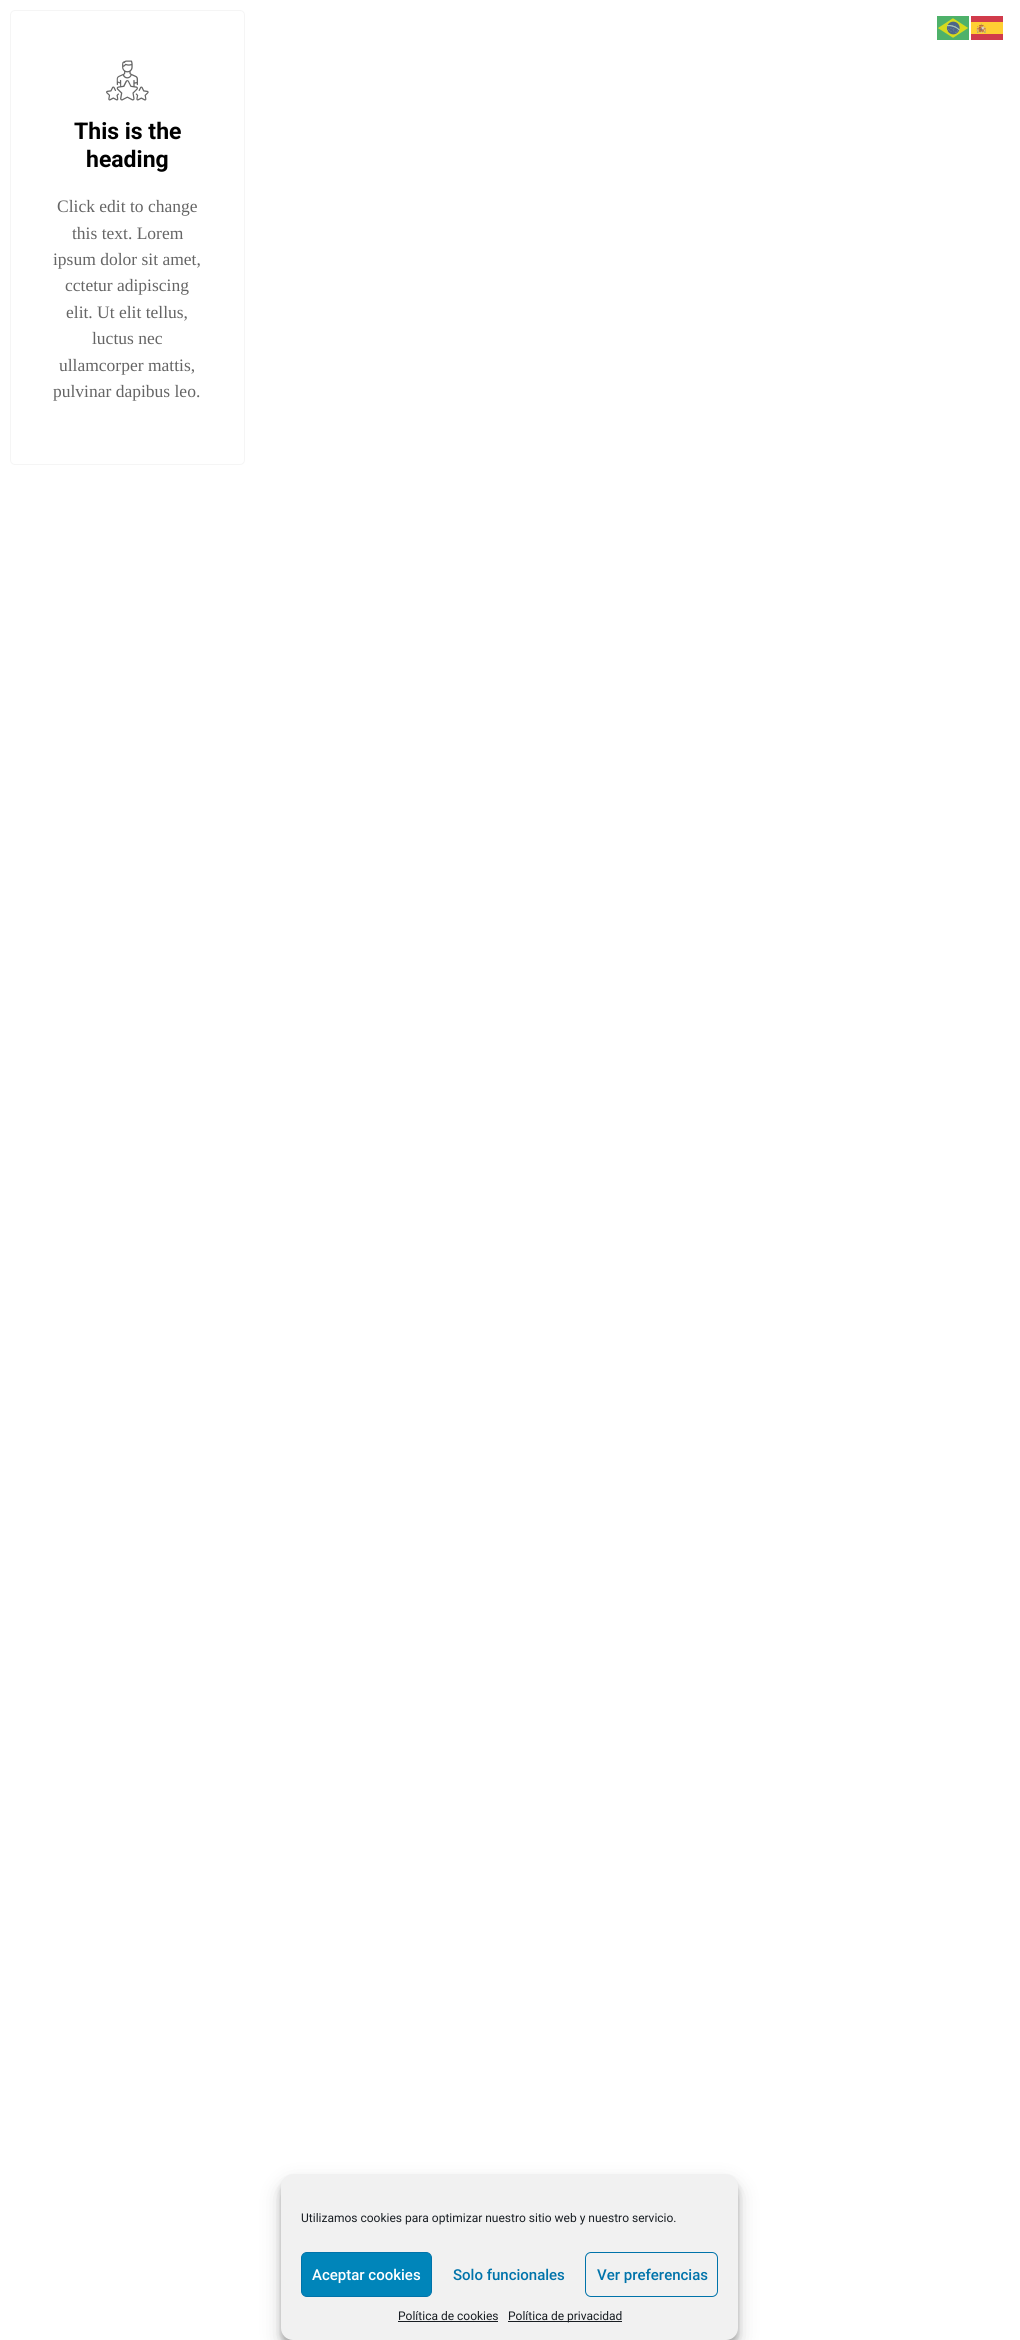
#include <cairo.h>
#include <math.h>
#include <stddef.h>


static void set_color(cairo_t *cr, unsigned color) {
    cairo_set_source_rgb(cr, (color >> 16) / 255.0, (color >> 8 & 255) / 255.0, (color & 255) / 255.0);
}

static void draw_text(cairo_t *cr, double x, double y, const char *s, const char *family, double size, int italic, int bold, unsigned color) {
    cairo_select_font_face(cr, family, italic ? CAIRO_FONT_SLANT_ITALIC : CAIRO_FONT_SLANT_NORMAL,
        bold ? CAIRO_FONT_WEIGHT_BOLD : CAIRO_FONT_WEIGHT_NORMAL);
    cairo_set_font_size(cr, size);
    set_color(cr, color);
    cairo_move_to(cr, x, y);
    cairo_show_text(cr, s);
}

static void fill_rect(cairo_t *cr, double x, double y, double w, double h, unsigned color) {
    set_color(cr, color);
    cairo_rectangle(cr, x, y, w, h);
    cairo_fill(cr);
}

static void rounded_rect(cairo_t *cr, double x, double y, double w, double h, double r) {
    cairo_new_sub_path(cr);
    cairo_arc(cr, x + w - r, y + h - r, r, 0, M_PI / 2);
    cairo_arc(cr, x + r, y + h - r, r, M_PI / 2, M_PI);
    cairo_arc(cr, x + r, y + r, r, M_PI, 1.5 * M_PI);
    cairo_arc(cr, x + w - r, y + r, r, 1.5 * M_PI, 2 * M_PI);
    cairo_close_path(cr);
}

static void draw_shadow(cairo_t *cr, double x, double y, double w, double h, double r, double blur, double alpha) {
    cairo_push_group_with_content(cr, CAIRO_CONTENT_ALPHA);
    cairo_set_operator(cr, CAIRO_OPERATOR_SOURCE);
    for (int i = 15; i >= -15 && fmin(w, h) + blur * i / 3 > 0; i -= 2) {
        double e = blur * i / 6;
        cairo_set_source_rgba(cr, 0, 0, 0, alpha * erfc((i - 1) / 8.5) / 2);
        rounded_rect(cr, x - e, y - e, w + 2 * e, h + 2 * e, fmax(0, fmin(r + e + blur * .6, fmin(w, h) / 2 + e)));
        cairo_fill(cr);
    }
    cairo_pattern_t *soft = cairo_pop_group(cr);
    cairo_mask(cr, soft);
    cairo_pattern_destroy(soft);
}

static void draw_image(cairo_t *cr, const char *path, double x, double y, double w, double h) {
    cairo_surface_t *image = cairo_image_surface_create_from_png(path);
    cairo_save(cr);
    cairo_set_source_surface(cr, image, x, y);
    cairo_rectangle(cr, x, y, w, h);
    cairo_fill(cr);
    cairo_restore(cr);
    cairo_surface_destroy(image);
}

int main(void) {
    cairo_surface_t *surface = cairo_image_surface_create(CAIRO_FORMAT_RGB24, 1020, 2340);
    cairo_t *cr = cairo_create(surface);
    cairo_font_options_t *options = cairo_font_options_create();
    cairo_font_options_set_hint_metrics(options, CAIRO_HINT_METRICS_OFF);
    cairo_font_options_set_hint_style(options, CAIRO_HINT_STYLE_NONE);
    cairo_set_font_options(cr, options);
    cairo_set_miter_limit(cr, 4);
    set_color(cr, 0xFFFFFF);
    cairo_paint(cr);
    draw_image(cr, "assets/img1.png", 937, 16, 32, 24);
    draw_image(cr, "assets/img2.png", 971, 16, 32, 24);
    rounded_rect(cr, 10.5, 10.5, 234, 454, 4.5);
    set_color(cr, 0xF5F5F5);
    cairo_set_line_width(cr, 1);
    cairo_stroke(cr);
    draw_image(cr, "assets/img3.png", 106, 60, 43, 41);
    draw_text(cr, 74, 139, "This is the", "Roboto", 23, 0, 1, 0x000000);
    draw_text(cr, 86, 167, "heading", "Roboto", 23, 0, 1, 0x000000);
    draw_text(cr, 57, 212, "Click edit to change", "Liberation Serif", 17.5, 0, 0, 0x656565);
    draw_text(cr, 72, 239, "this text. Lorem", "Liberation Serif", 17.5, 0, 0, 0x656565);
    draw_text(cr, 53, 265, "ipsum dolor sit amet,", "Liberation Serif", 17.5, 0, 0, 0x656565);
    draw_text(cr, 65, 291, "cctetur adipiscing", "Liberation Serif", 17.5, 0, 0, 0x656565);
    draw_text(cr, 66, 318, "elit. Ut elit tellus,", "Liberation Serif", 17.5, 0, 0, 0x656565);
    draw_text(cr, 92, 344, "luctus nec", "Liberation Serif", 17.5, 0, 0, 0x656565);
    draw_text(cr, 59, 371, "ullamcorper mattis,", "Liberation Serif", 17.5, 0, 0, 0x656565);
    draw_text(cr, 53, 397, "pulvinar dapibus leo.", "Liberation Serif", 17.5, 0, 0, 0x656565);
    set_color(cr, 0x000000);
    draw_shadow(cr, 281, 2180, 457, 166, 12, 3, 0.23);
    draw_shadow(cr, 281, 2184, 457, 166, 12, 10, 0.19);
    set_color(cr, 0xF1F1F1);
    rounded_rect(cr, 281, 2174, 457, 166, 12);
    cairo_fill(cr);
    draw_text(cr, 301, 2222, "Utilizamos cookies para optimizar nuestro sitio web y nuestro servicio.", "Roboto", 12, 0, 0, 0x191E23);
    set_color(cr, 0x0085BA);
    rounded_rect(cr, 301.5, 2252.5, 130, 44, 5.5);
    cairo_fill_preserve(cr);
    set_color(cr, 0x0073AA);
    cairo_stroke(cr);
    draw_text(cr, 312, 2280, "Aceptar cookies", "Roboto Medium", 15, 0, 0, 0xFFFFFF);
    draw_text(cr, 453, 2280, "Solo funcionales", "Roboto Medium", 15, 0, 0, 0x0073AA);
    rounded_rect(cr, 585.5, 2252.5, 132, 44, 5.5);
    cairo_stroke(cr);
    draw_text(cr, 597, 2280, "Ver preferencias", "Roboto Medium", 15, 0, 0, 0x0073AA);
    draw_text(cr, 398, 2320, "Política de cookies", "Roboto", 12, 0, 0, 0x191E23);
    fill_rect(cr, 398, 2321, 100, 1, 0x191E23);
    fill_rect(cr, 508, 2321, 114, 1, 0x191E23);
    draw_text(cr, 508, 2320, "Política de privacidad", "Roboto", 12, 0, 0, 0x191E23);
    cairo_surface_write_to_png(surface, "output.png");
    cairo_font_options_destroy(options);
    cairo_destroy(cr);
    cairo_surface_destroy(surface);
    return 0;
}
